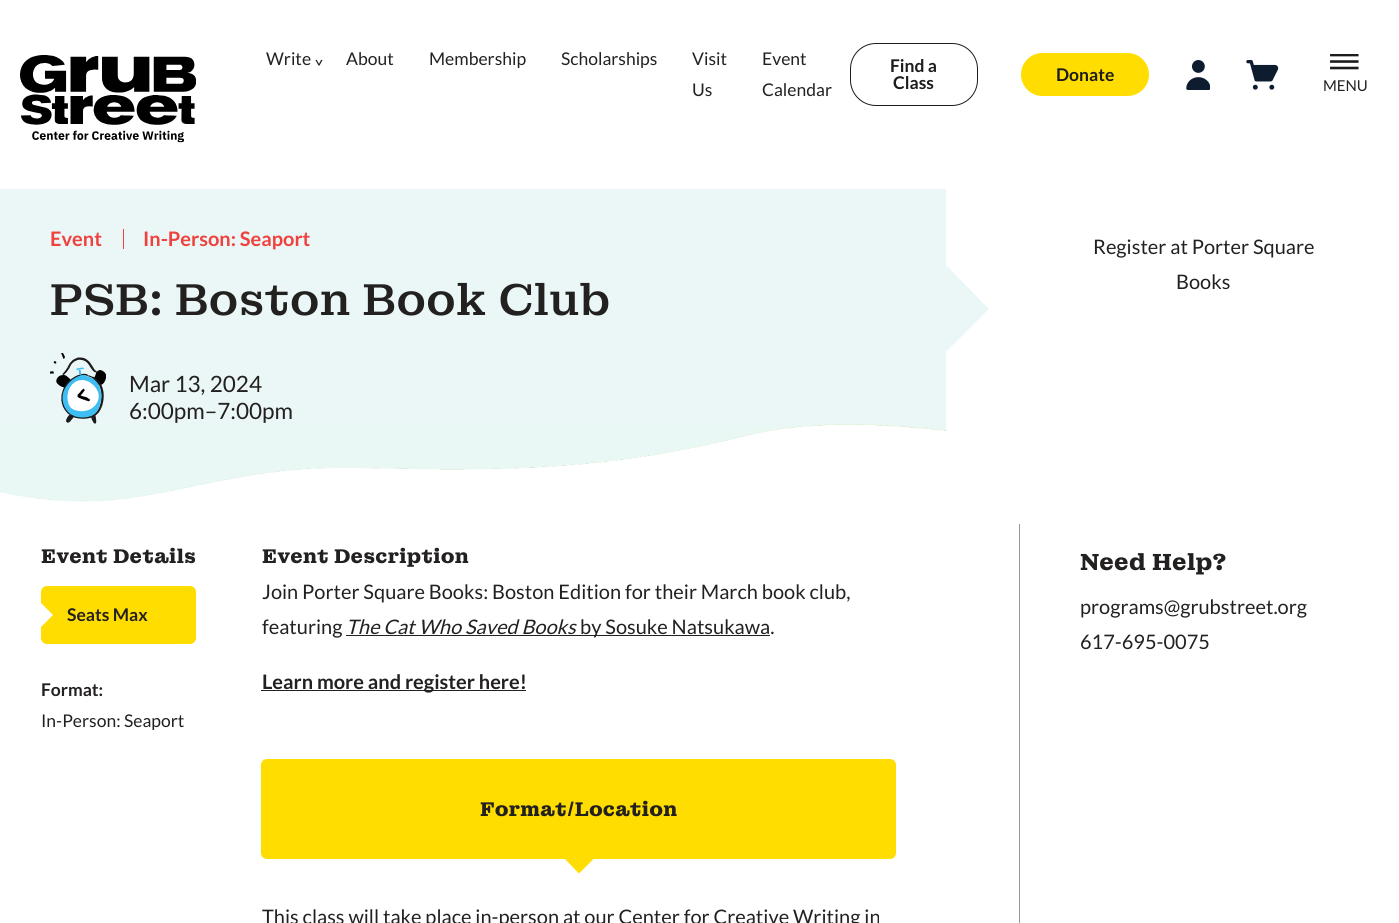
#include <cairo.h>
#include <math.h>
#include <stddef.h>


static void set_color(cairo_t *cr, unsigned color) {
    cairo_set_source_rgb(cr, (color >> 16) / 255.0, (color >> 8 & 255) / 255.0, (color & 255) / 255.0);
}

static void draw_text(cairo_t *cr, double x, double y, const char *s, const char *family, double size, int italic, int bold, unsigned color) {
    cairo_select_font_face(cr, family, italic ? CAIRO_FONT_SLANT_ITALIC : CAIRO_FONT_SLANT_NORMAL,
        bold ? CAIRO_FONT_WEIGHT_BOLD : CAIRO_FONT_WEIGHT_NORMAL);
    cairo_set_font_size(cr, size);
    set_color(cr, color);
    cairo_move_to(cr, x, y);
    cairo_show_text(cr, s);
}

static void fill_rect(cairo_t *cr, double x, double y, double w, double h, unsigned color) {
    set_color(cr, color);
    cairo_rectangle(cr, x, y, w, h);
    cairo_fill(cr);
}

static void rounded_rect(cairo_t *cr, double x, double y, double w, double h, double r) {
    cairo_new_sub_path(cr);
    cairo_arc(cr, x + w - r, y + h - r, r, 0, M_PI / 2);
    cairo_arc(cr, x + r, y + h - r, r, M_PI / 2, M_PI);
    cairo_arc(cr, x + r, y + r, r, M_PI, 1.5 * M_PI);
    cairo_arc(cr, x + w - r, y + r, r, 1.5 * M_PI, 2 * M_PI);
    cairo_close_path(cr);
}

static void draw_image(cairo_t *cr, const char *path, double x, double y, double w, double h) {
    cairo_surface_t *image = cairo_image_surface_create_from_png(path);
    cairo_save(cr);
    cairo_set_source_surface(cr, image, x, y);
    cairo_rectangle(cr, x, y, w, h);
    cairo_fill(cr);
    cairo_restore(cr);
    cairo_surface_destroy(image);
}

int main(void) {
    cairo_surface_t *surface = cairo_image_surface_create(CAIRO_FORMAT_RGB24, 1399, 923);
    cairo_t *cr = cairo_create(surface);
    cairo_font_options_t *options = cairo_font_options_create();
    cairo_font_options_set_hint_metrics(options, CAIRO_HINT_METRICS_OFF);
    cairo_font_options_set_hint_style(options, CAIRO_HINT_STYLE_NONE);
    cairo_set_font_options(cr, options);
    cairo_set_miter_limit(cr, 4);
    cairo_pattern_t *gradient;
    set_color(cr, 0xFFFFFF);
    cairo_paint(cr);
    draw_image(cr, "assets/img1.png", 20, 55, 176, 88);
    draw_text(cr, 266, 65, "Write", "Lato", 17.5, 0, 0, 0x232020);
    cairo_save(cr);
    cairo_translate(cr, 324, 53);
    cairo_rotate(cr, 180 * M_PI / 180);
    draw_text(cr, 0, 0, "^", "Lato", 17.5, 0, 0, 0x232020);
    cairo_restore(cr);
    draw_text(cr, 346, 65, "About", "Lato", 17.5, 0, 0, 0x232020);
    draw_text(cr, 429, 65, "Membership", "Lato", 17.5, 0, 0, 0x232020);
    draw_text(cr, 561, 65, "Scholarships", "Lato", 17.5, 0, 0, 0x232020);
    draw_text(cr, 692, 65, "Visit", "Lato", 17.5, 0, 0, 0x232020);
    draw_text(cr, 692, 96, "Us", "Lato", 17.5, 0, 0, 0x232020);
    draw_text(cr, 762, 65, "Event", "Lato", 17.5, 0, 0, 0x232020);
    draw_text(cr, 762, 96, "Calendar", "Lato", 17.5, 0, 0, 0x232020);
    rounded_rect(cr, 850.5, 43.5, 127, 62, 25.5);
    set_color(cr, 0x1C1C1C);
    cairo_set_line_width(cr, 1);
    cairo_stroke(cr);
    draw_text(cr, 890, 72, "Find a", "Lato", 17.5, 0, 1, 0x1C1C1C);
    draw_text(cr, 893, 89, "Class", "Lato", 17.5, 0, 1, 0x1C1C1C);
    set_color(cr, 0xFFDD00);
    rounded_rect(cr, 1021, 53, 128, 43, 21.5);
    cairo_fill(cr);
    draw_text(cr, 1056, 81, "Donate", "Lato", 17.5, 0, 1, 0x1C1C1C);
    draw_image(cr, "assets/img2.png", 1186, 60, 24, 30);
    draw_image(cr, "assets/img3.png", 1246, 60, 33, 30);
    draw_image(cr, "assets/img4.png", 1330, 54, 29, 16);
    draw_text(cr, 1323, 91, "MENU", "Lato", 15, 0, 0, 0x232020);
    gradient = cairo_pattern_create_linear(0, 306, 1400, 306);
    cairo_pattern_add_color_stop_rgba(gradient, 0, 0.918, 0.969, 0.965, 1);
    cairo_pattern_add_color_stop_rgba(gradient, 0.48, 0.918, 0.969, 0.965, 1);
    cairo_pattern_add_color_stop_rgba(gradient, 0.5, 1, 1, 1, 1);
    cairo_set_source(cr, gradient);
    cairo_pattern_destroy(gradient);
    cairo_rectangle(cr, 0, 189, 697, 235);
    cairo_fill(cr);
    fill_rect(cr, 675, 189, 271, 235, 0xEAF7F6);
    draw_text(cr, 50, 246, "Event", "Lato", 20, 0, 1, 0xEF413D);
    fill_rect(cr, 123, 229, 1, 20, 0xEF413D);
    draw_text(cr, 143, 246, "In-Person: Seaport", "Lato", 20, 0, 1, 0xEF413D);
    draw_text(cr, 50, 315, "PSB: Boston Book Club", "Montagu Slab Medium", 45, 0, 0, 0x232020);
    set_color(cr, 0xEAF7F6);
    cairo_new_path(cr);
    cairo_move_to(cr, 947, 266);
    cairo_line_to(cr, 989, 309);
    cairo_line_to(cr, 947, 351);
    cairo_line_to(cr, 904, 309);
    cairo_close_path(cr);
    cairo_fill(cr);
    draw_image(cr, "assets/img5.png", 50, 353, 56, 71);
    draw_text(cr, 129, 392, "Mar 13, 2024", "Lato", 22.5, 0, 0, 0x232020);
    draw_text(cr, 129, 419, "6:00pm–7:00pm", "Lato", 22.5, 0, 0, 0x232020);
    draw_image(cr, "assets/img6.png", 0, 424, 947, 78);
    draw_text(cr, 1093, 254, "Register at Porter Square", "Lato", 20, 0, 0, 0x232020);
    draw_text(cr, 1176, 289, "Books", "Lato", 20, 0, 0, 0x232020);
    draw_text(cr, 41, 563, "Event Details", "Montagu Slab", 20, 0, 1, 0x232020);
    set_color(cr, 0xFFDD00);
    rounded_rect(cr, 41, 586, 155, 58, 6);
    cairo_fill(cr);
    set_color(cr, 0xFFFFFF);
    cairo_new_path(cr);
    cairo_move_to(cr, 40.5, 602.5);
    cairo_line_to(cr, 53, 615);
    cairo_line_to(cr, 40.5, 627.5);
    cairo_line_to(cr, 28.5, 615);
    cairo_close_path(cr);
    cairo_fill(cr);
    draw_text(cr, 67, 621, "Seats Max", "Lato", 17.5, 0, 1, 0x232020);
    draw_text(cr, 41, 696, "Format:", "Lato", 17.5, 0, 1, 0x232020);
    draw_text(cr, 41, 727, "In-Person: Seaport", "Lato", 17.5, 0, 0, 0x232020);
    draw_text(cr, 262, 563, "Event Description", "Montagu Slab", 20, 0, 1, 0x232020);
    draw_text(cr, 262, 599, "Join Porter Square Books: Boston Edition for their March book club,", "Lato", 20, 0, 0, 0x232020);
    draw_text(cr, 262, 634, "featuring", "Lato", 20, 0, 0, 0x232020);
    draw_text(cr, 346, 634, "The Cat Who Saved Books", "Lato", 20, 1, 0, 0x232020);
    fill_rect(cr, 346, 635, 424, 1, 0x232020);
    draw_text(cr, 580, 634, "by Sosuke Natsukawa.", "Lato", 20, 0, 0, 0x232020);
    fill_rect(cr, 261, 690, 265, 1, 0x232020);
    draw_text(cr, 262, 689, "Learn more and register here!", "Lato", 20, 0, 1, 0x232020);
    set_color(cr, 0xFFDD00);
    rounded_rect(cr, 261, 759, 635, 100, 6);
    cairo_fill(cr);
    draw_text(cr, 480, 816, "Format/Location", "Montagu Slab", 20, 0, 1, 0x232020);
    set_color(cr, 0xFFDD00);
    cairo_new_path(cr);
    cairo_move_to(cr, 579, 845);
    cairo_line_to(cr, 593.5, 859);
    cairo_line_to(cr, 579, 873.5);
    cairo_line_to(cr, 565, 859);
    cairo_close_path(cr);
    cairo_fill(cr);
    draw_text(cr, 262, 924, "This class will take place in-person at our Center for Creative Writing in", "Lato", 20, 0, 0, 0x232020);
    fill_rect(cr, 1019, 524, 1, 399, 0x979797);
    draw_text(cr, 1080, 570, "Need Help?", "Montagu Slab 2", 23.5, 0, 1, 0x232020);
    draw_text(cr, 1080, 614, "programs@grubstreet.org", "Lato", 20, 0, 0, 0x232020);
    draw_text(cr, 1080, 649, "617-695-0075", "Lato", 20, 0, 0, 0x232020);
    cairo_surface_write_to_png(surface, "output.png");
    cairo_font_options_destroy(options);
    cairo_destroy(cr);
    cairo_surface_destroy(surface);
    return 0;
}
